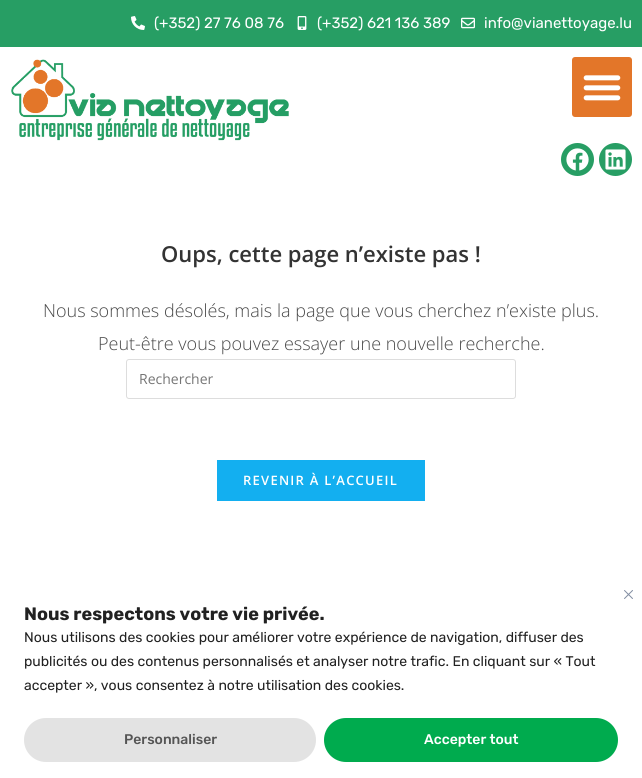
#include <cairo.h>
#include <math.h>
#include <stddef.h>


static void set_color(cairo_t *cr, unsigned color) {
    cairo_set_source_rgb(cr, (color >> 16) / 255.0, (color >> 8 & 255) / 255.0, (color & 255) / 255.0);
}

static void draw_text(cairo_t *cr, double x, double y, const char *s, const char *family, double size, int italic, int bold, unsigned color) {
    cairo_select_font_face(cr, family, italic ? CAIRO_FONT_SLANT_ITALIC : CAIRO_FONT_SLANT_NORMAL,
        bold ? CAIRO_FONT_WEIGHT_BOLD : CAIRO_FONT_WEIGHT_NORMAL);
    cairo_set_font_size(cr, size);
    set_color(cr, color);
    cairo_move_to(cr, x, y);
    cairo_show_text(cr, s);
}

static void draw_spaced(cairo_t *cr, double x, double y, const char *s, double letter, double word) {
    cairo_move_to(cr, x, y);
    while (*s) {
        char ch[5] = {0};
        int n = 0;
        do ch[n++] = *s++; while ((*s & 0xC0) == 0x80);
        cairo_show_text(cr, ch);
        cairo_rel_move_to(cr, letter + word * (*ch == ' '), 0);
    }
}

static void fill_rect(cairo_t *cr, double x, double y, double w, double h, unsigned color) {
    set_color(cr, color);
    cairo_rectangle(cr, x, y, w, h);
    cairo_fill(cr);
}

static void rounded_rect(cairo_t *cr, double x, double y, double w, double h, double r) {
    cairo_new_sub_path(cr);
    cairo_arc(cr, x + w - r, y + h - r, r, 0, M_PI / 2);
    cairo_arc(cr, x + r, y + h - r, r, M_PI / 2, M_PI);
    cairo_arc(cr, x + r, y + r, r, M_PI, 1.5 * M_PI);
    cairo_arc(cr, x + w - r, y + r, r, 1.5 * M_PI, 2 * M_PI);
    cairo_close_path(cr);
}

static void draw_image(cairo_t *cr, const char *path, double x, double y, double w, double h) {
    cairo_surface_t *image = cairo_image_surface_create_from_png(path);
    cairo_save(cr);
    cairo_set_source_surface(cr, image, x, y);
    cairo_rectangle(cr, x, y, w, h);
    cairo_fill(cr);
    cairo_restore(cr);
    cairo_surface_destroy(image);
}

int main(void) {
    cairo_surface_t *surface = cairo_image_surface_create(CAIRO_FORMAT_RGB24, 642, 778);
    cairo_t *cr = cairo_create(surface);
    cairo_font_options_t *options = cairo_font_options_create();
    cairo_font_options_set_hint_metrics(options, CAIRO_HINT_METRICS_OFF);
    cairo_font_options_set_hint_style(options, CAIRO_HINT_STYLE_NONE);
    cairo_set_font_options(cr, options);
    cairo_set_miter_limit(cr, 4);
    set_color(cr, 0xFFFFFF);
    cairo_paint(cr);
    fill_rect(cr, 0, 0, 642, 47, 0x279E64);
    draw_image(cr, "assets/img1.png", 131, 16, 14, 14);
    draw_text(cr, 154, 28, "(+352) 27 76 08 76", "Rubik", 15, 0, 0, 0xFFFFFF);
    draw_image(cr, "assets/img2.png", 297, 16, 10, 14);
    draw_text(cr, 317, 28, "(+352) 621 136 389", "Rubik", 15, 0, 0, 0xFFFFFF);
    draw_image(cr, "assets/img3.png", 461, 17, 14, 12);
    draw_text(cr, 484, 28, "info@vianettoyage.lu", "Rubik", 15, 0, 0, 0xFFFFFF);
    draw_image(cr, "assets/img4.png", 11, 59, 278, 82);
    set_color(cr, 0xE37629);
    rounded_rect(cr, 572, 57, 60, 60, 3);
    cairo_fill(cr);
    draw_image(cr, "assets/img5.png", 583, 75, 38, 26);
    set_color(cr, 0x279E64);
    cairo_arc(cr, 577.5, 159.5, 16.5, 0, 2 * M_PI);
    cairo_fill(cr);
    draw_image(cr, "assets/img6.png", 566, 148, 23, 23);
    cairo_arc(cr, 615.5, 159.5, 16.5, 0, 2 * M_PI);
    cairo_fill(cr);
    draw_image(cr, "assets/img7.png", 605, 149, 21, 21);
    draw_text(cr, 161, 262, "Oups, cette page n’existe pas !", "Open Sans SemiBold", 22, 0, 0, 0x333333);
    draw_text(cr, 43, 317, "Nous sommes désolés, mais la page que vous cherchez n’existe plus.", "Open Sans Light", 18, 0, 0, 0x4A4A4A);
    draw_text(cr, 98, 350, "Peut-être vous pouvez essayer une nouvelle recherche.", "Open Sans Light", 18, 0, 0, 0x4A4A4A);
    rounded_rect(cr, 126.5, 359.5, 389, 39, 2.5);
    set_color(cr, 0xDDDDDD);
    cairo_set_line_width(cr, 1);
    cairo_stroke(cr);
    draw_text(cr, 139, 384, "Rechercher", "Open Sans", 14, 0, 0, 0x757575);
    fill_rect(cr, 217, 460, 208, 41, 0x13AFF0);
    cairo_select_font_face(cr, "Open Sans SemiBold", CAIRO_FONT_SLANT_NORMAL, CAIRO_FONT_WEIGHT_NORMAL);
    cairo_set_font_size(cr, 13);
    set_color(cr, 0xFFFFFF);
    draw_spaced(cr, 243, 485, "REVENIR À L’ACCUEIL", 1.25, 0);
    draw_image(cr, "assets/img8.png", 624, 590, 9, 9);
    draw_text(cr, 24, 620, "Nous respectons votre vie privée.", "Rubik", 18, 0, 1, 0x212121);
    draw_text(cr, 24, 642, "Nous utilisons des cookies pour améliorer votre expérience de navigation, diffuser des", "Rubik", 14, 0, 0, 0x212121);
    draw_text(cr, 24, 666, "publicités ou des contenus personnalisés et analyser notre trafic. En cliquant sur « Tout", "Rubik", 14, 0, 0, 0x212121);
    draw_text(cr, 24, 690, "accepter », vous consentez à notre utilisation des cookies.", "Rubik", 14, 0, 0, 0x212121);
    set_color(cr, 0xE3E3E3);
    rounded_rect(cr, 25, 719, 290, 42, 21);
    cairo_fill_preserve(cr);
    cairo_set_line_width(cr, 2);
    cairo_stroke(cr);
    draw_text(cr, 124, 744, "Personnaliser", "Rubik Medium", 14, 0, 0, 0x555555);
    set_color(cr, 0x00AB4E);
    rounded_rect(cr, 325, 719, 292, 42, 21);
    cairo_fill_preserve(cr);
    cairo_stroke(cr);
    draw_text(cr, 424, 744, "Accepter tout", "Rubik Medium", 14, 0, 0, 0xFFFFFF);
    cairo_surface_write_to_png(surface, "output.png");
    cairo_font_options_destroy(options);
    cairo_destroy(cr);
    cairo_surface_destroy(surface);
    return 0;
}
